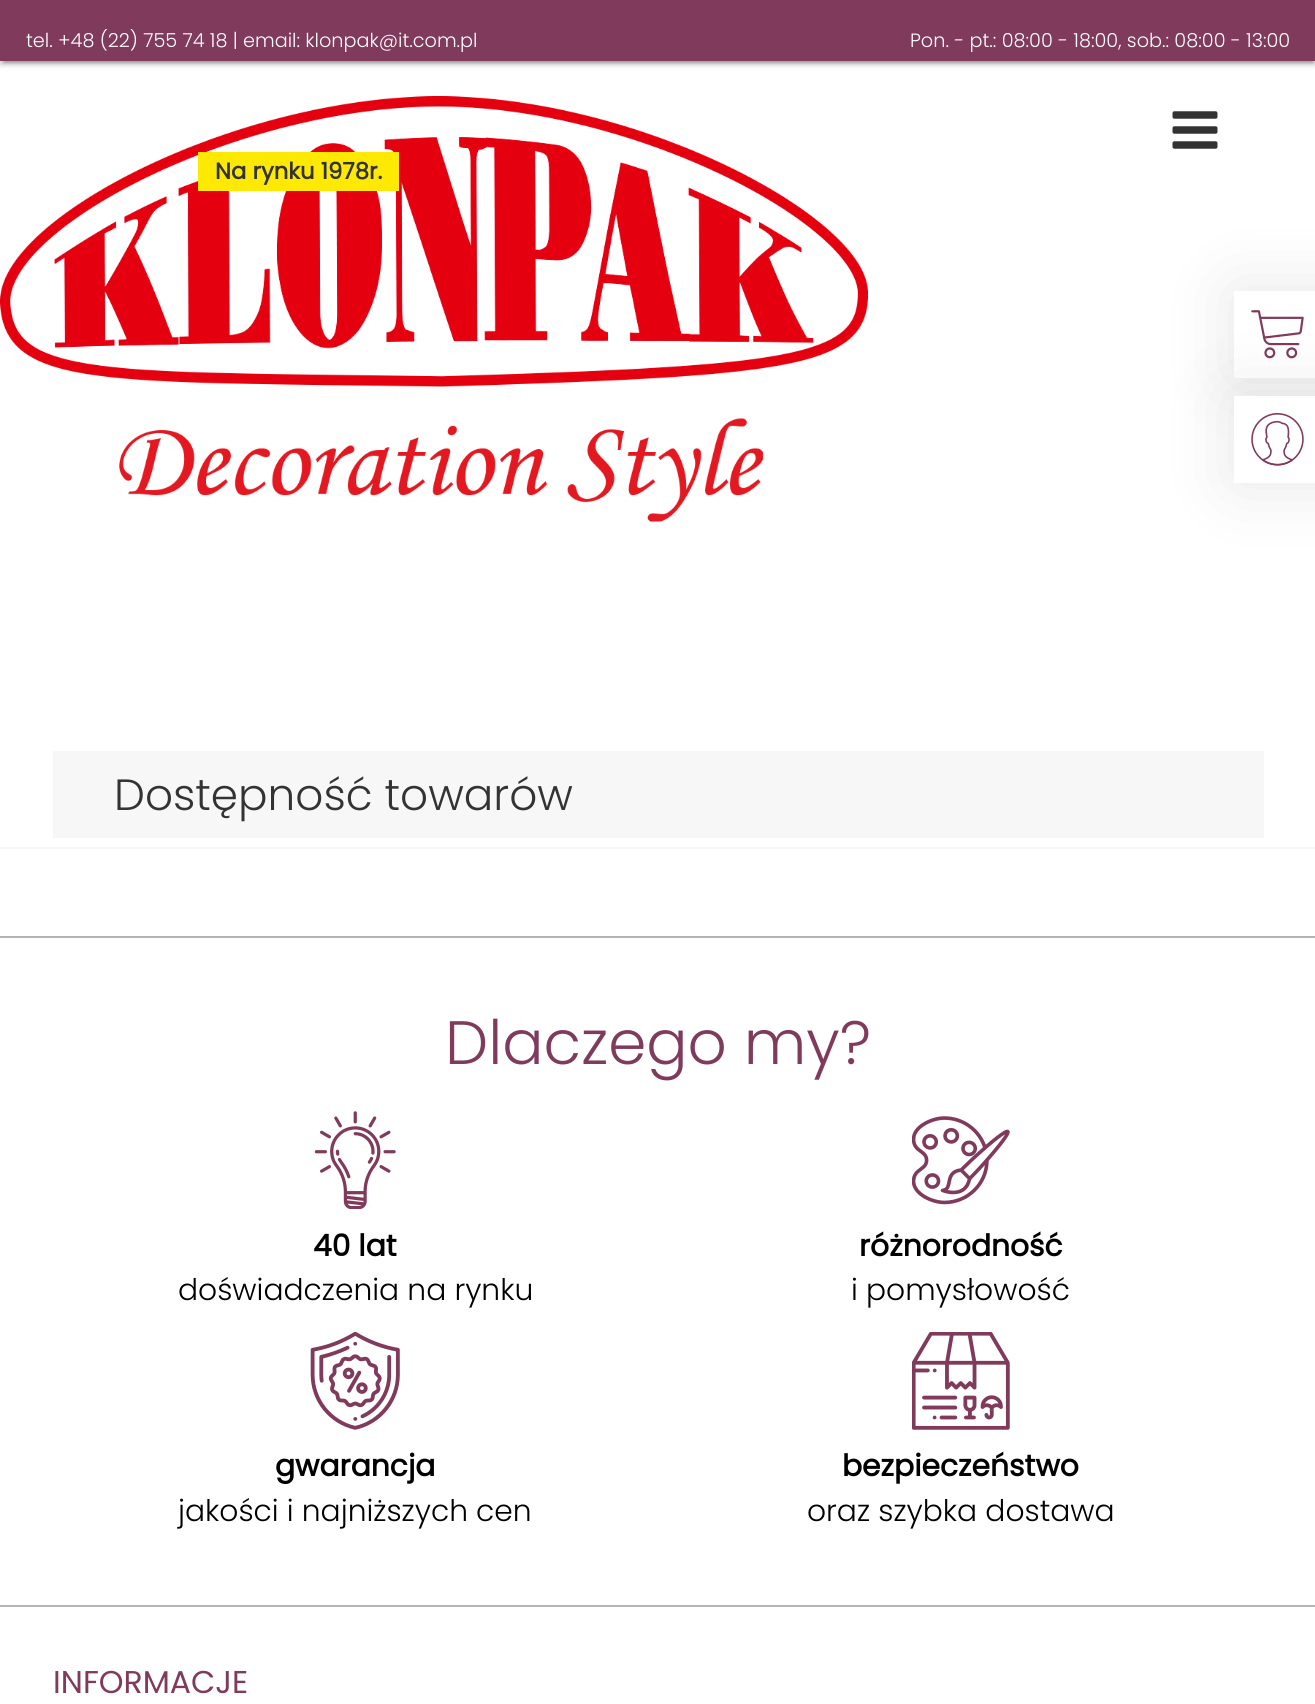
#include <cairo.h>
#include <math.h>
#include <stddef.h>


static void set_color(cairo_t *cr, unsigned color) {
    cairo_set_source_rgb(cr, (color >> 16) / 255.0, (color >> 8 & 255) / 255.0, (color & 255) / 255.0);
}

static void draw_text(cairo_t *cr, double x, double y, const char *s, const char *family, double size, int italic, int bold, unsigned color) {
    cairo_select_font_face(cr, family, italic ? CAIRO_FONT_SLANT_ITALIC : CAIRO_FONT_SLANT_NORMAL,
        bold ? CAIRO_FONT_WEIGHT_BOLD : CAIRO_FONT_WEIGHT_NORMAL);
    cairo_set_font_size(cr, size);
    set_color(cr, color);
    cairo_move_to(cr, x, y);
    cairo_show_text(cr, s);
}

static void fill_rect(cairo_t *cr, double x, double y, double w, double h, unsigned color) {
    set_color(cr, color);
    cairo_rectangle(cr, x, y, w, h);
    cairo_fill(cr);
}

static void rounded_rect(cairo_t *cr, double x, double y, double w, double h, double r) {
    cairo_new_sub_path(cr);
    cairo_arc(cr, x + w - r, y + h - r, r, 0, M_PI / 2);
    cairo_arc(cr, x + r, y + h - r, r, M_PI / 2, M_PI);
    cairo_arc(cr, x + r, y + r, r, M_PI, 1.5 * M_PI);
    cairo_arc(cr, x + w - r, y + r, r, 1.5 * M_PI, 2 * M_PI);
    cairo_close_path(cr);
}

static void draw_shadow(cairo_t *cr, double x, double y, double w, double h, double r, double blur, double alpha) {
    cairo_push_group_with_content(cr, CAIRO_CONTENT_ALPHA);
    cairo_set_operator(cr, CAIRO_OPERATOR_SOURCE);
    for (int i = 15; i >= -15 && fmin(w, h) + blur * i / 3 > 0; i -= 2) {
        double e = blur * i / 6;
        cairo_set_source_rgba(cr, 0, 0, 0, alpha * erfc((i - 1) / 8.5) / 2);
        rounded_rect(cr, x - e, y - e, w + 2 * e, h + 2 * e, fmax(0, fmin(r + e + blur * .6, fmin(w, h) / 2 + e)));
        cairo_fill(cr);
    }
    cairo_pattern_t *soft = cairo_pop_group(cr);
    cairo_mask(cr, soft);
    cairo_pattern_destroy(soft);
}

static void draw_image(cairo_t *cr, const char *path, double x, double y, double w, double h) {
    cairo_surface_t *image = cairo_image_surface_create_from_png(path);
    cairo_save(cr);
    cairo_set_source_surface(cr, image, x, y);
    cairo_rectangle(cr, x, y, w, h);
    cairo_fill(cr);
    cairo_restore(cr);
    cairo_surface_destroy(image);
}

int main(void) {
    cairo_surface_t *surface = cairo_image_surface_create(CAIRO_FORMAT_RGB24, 1315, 1704);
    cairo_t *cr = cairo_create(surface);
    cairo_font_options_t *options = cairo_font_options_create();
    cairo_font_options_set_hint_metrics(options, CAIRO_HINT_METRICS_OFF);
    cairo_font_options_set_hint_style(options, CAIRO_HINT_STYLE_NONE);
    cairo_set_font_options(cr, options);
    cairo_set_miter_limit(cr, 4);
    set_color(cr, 0xFFFFFF);
    cairo_paint(cr);
    set_color(cr, 0x000000);
    draw_shadow(cr, 0, 2, 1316, 61, 0, 4.5, 0.12);
    draw_shadow(cr, 4, 9, 1309, 54, 0, 1, 0.2);
    draw_shadow(cr, 0, 4, 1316, 61, 0, 2, 0.14);
    fill_rect(cr, 0, 0, 1315, 61, 0x803A5C);
    draw_text(cr, 26, 47, "tel. +48 (22) 755 74 18 | email: klonpak@it.com.pl", "Poppins Light", 19.25, 0, 0, 0xFFFFFF);
    draw_text(cr, 910, 47, "Pon. - pt.: 08:00 - 18:00, sob.: 08:00 - 13:00", "Poppins Light", 19.25, 0, 0, 0xFFFFFF);
    draw_image(cr, "assets/img1.png", 1172, 111, 46, 38);
    draw_image(cr, "assets/img2.png", 0, 96, 868, 426);
    fill_rect(cr, 198, 152, 201, 39, 0xFEE905);
    draw_text(cr, 215, 179, "Na rynku 1978r.", "Poppins", 22.75, 0, 1, 0x333333);
    fill_rect(cr, 0, 847, 1315, 2, 0xF7F7F7);
    fill_rect(cr, 53, 751, 1211, 87, 0xF7F7F7);
    draw_text(cr, 114, 810, "Dostępność towarów", "Poppins Light", 43.75, 0, 0, 0x333333);
    fill_rect(cr, 0, 936, 1315, 2, 0xB4B4B4);
    fill_rect(cr, 0, 1605, 1315, 2, 0xB4B4B4);
    draw_text(cr, 445, 1064, "Dlaczego my?", "Poppins Light", 61.25, 0, 0, 0x803A5C);
    draw_image(cr, "assets/img3.png", 314, 1111, 82, 98);
    draw_text(cr, 313, 1256, "40 lat", "Poppins", 29.75, 0, 1, 0x000000);
    draw_text(cr, 178, 1300, "doświadczenia na rynku", "Poppins Light", 29.75, 0, 0, 0x000000);
    draw_image(cr, "assets/img4.png", 912, 1116, 98, 89);
    draw_text(cr, 859, 1256, "różnorodność", "Poppins", 29.75, 0, 1, 0x000000);
    draw_text(cr, 851, 1300, "i pomysłowość", "Poppins Light", 29.75, 0, 0, 0x000000);
    draw_image(cr, "assets/img5.png", 310, 1332, 90, 98);
    draw_text(cr, 275, 1476, "gwarancja", "Poppins", 29.75, 0, 1, 0x000000);
    draw_text(cr, 178, 1521, "jakości i najniższych cen", "Poppins Light", 29.75, 0, 0, 0x000000);
    draw_image(cr, "assets/img6.png", 912, 1332, 98, 98);
    draw_text(cr, 842, 1476, "bezpieczeństwo", "Poppins", 29.75, 0, 1, 0x000000);
    draw_text(cr, 807, 1521, "oraz szybka dostawa", "Poppins Light", 29.75, 0, 0, 0x000000);
    draw_text(cr, 53, 1693, "INFORMACJE", "Poppins", 31.5, 0, 0, 0x803A5C);
    cairo_save(cr);
    cairo_set_fill_rule(cr, CAIRO_FILL_RULE_EVEN_ODD);
    cairo_new_path(cr);
    cairo_move_to(cr, 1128, 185);
    cairo_line_to(cr, 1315, 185);
    cairo_line_to(cr, 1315, 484);
    cairo_line_to(cr, 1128, 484);
    cairo_close_path(cr);
    cairo_move_to(cr, 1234, 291);
    cairo_line_to(cr, 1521, 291);
    cairo_line_to(cr, 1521, 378);
    cairo_line_to(cr, 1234, 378);
    cairo_close_path(cr);
    cairo_clip(cr);
    set_color(cr, 0x000000);
    draw_shadow(cr, 1234, 291, 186, 87, 0, 35, 0.1);
    cairo_restore(cr);
    draw_image(cr, "assets/img7.png", 1251, 310, 53, 49);
    set_color(cr, 0x000000);
    draw_shadow(cr, 1234, 396, 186, 87, 0, 35, 0.1);
    fill_rect(cr, 1234, 396, 81, 87, 0xFFFFFF);
    draw_image(cr, "assets/img8.png", 1251, 413, 53, 53);
    cairo_surface_write_to_png(surface, "output.png");
    cairo_font_options_destroy(options);
    cairo_destroy(cr);
    cairo_surface_destroy(surface);
    return 0;
}
